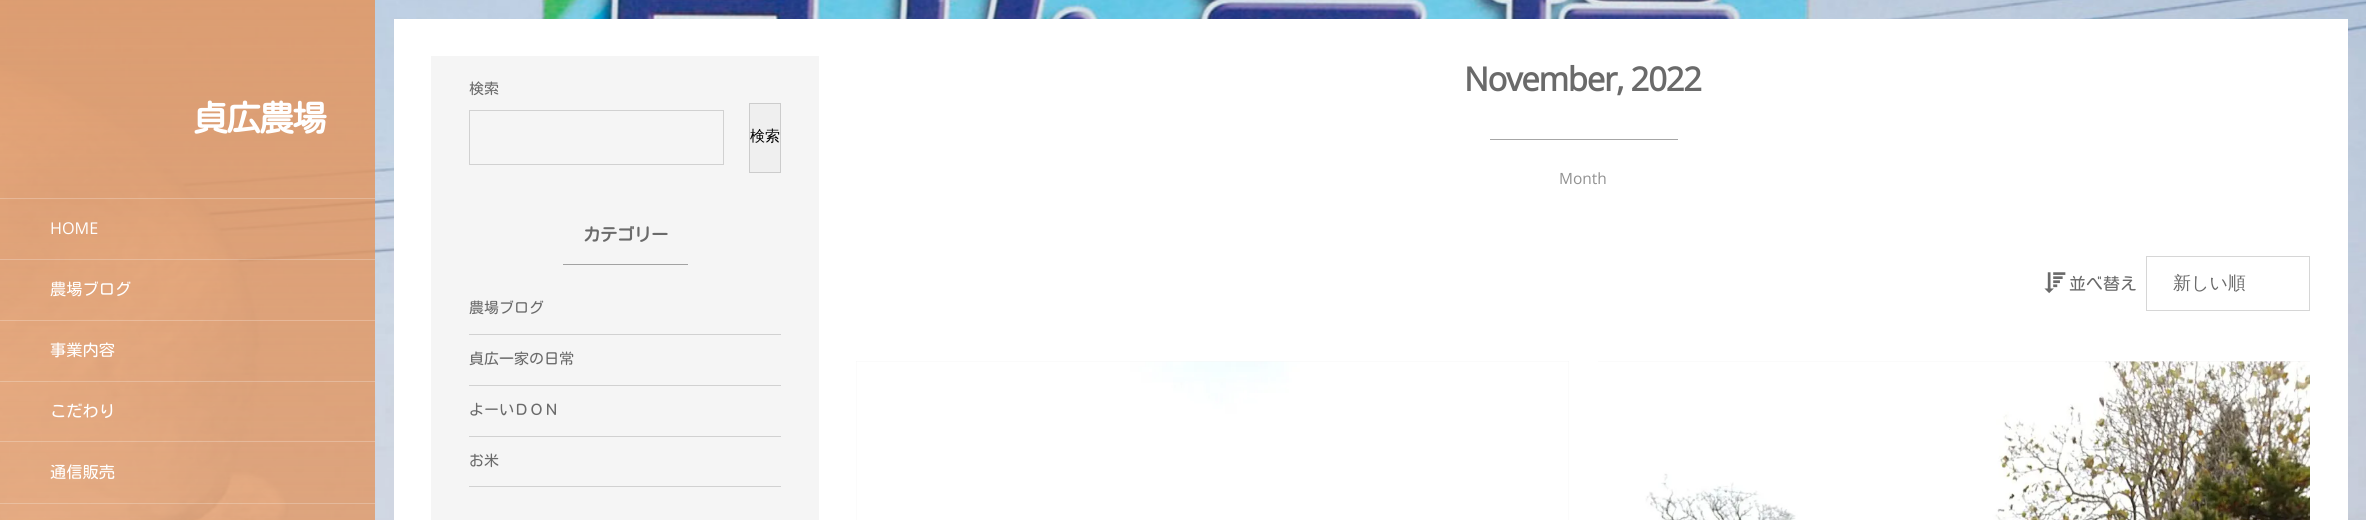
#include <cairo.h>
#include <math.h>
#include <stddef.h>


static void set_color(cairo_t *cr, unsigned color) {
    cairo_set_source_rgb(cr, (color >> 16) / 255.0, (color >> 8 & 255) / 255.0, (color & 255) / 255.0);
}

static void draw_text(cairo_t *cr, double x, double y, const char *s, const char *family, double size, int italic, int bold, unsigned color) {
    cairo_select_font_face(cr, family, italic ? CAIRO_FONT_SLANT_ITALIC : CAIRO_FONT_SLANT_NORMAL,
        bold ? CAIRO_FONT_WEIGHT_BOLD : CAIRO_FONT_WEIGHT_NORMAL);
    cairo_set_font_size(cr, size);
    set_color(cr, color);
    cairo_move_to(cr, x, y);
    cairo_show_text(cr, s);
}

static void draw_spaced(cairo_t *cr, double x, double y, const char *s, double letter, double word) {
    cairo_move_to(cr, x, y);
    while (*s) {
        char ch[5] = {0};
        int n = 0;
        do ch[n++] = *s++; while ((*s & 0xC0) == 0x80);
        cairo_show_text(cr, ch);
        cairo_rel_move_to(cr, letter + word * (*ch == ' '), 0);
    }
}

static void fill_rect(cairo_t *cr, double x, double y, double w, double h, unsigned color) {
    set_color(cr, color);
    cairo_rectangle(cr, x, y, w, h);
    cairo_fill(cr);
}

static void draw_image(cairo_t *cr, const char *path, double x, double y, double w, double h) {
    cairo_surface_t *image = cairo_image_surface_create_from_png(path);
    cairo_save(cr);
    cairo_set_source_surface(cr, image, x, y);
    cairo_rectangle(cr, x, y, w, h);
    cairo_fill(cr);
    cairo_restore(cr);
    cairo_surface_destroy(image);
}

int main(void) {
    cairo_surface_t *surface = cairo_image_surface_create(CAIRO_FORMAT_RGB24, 2366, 520);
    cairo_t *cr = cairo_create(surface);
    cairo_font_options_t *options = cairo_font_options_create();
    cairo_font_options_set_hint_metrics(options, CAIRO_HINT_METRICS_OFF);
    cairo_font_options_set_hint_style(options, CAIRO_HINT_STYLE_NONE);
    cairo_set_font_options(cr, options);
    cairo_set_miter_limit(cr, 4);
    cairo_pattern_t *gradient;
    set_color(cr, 0xFFFFFF);
    cairo_paint(cr);
    draw_image(cr, "assets/img1.png", 0, 0, 2366, 520);
    cairo_set_source_rgba(cr, 0.882, 0.588, 0.38, 0.72);
    cairo_rectangle(cr, 0, 0, 375, 520);
    cairo_fill(cr);
    gradient = cairo_pattern_create_linear(187, 0, 188, 520);
    cairo_pattern_add_color_stop_rgba(gradient, 0, 0.882, 0.588, 0.38, 0.52);
    cairo_pattern_add_color_stop_rgba(gradient, 1, 0.882, 0.588, 0.38, 0.2);
    cairo_set_source(cr, gradient);
    cairo_pattern_destroy(gradient);
    cairo_rectangle(cr, 0, 0, 375, 520);
    cairo_fill(cr);
    cairo_select_font_face(cr, "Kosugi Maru", CAIRO_FONT_SLANT_NORMAL, CAIRO_FONT_WEIGHT_BOLD);
    cairo_set_font_size(cr, 35);
    set_color(cr, 0xFFFFFF);
    draw_spaced(cr, 193, 131, "貞広農場", -2, 0);
    cairo_set_source_rgba(cr, 1, 1, 1, 0.24);
    cairo_rectangle(cr, 0, 198, 375, 1);
    cairo_fill(cr);
    cairo_rectangle(cr, 0, 259, 375, 1);
    cairo_fill(cr);
    draw_text(cr, 50, 234, "HOME", "Open Sans", 16.25, 0, 0, 0xFFFFFF);
    cairo_set_source_rgba(cr, 1, 1, 1, 0.24);
    cairo_rectangle(cr, 0, 320, 375, 1);
    cairo_fill(cr);
    draw_text(cr, 50, 295, "農場ブログ", "Kosugi Maru", 16.25, 0, 0, 0xFFFFFF);
    cairo_set_source_rgba(cr, 1, 1, 1, 0.24);
    cairo_rectangle(cr, 0, 381, 375, 1);
    cairo_fill(cr);
    draw_text(cr, 50, 356, "事業内容", "Kosugi Maru", 16.25, 0, 0, 0xFFFFFF);
    cairo_set_source_rgba(cr, 1, 1, 1, 0.24);
    cairo_rectangle(cr, 0, 441, 375, 1);
    cairo_fill(cr);
    draw_text(cr, 50, 417, "こだわり", "Kosugi Maru", 16.25, 0, 0, 0xFFFFFF);
    cairo_set_source_rgba(cr, 1, 1, 1, 0.24);
    cairo_rectangle(cr, 0, 503, 375, 1);
    cairo_fill(cr);
    draw_text(cr, 50, 478, "通信販売", "Kosugi Maru", 16.25, 0, 0, 0xFFFFFF);
    fill_rect(cr, 394, 19, 1954, 501, 0xFFFFFF);
    fill_rect(cr, 431, 56, 388, 464, 0xF5F5F5);
    draw_text(cr, 469, 94, "検索", "Kosugi Maru", 15, 0, 0, 0x6A6A6A);
    cairo_rectangle(cr, 469.5, 110.5, 254, 54);
    set_color(cr, 0xD1D1D1);
    cairo_set_line_width(cr, 1);
    cairo_stroke(cr);
    set_color(cr, 0xEFEFEF);
    cairo_rectangle(cr, 749.5, 103.5, 31, 69);
    cairo_fill_preserve(cr);
    set_color(cr, 0xCCCCCC);
    cairo_stroke(cr);
    draw_text(cr, 750, 141, "検索", "WenQuanYi Zen Hei Medium", 15, 0, 0, 0x000000);
    cairo_select_font_face(cr, "Kosugi Maru", CAIRO_FONT_SLANT_NORMAL, CAIRO_FONT_WEIGHT_BOLD);
    cairo_set_font_size(cr, 17.5);
    set_color(cr, 0x6A6A6A);
    draw_spaced(cr, 583, 241, "カテゴリー", -0.5, 0);
    fill_rect(cr, 563, 264, 125, 1, 0xA2A2A2);
    fill_rect(cr, 469, 334, 312, 1, 0xD1D1D1);
    draw_text(cr, 469, 313, "農場ブログ", "Kosugi Maru", 15, 0, 0, 0x6A6A6A);
    fill_rect(cr, 469, 385, 312, 1, 0xD1D1D1);
    draw_text(cr, 469, 364, "貞広一家の日常", "Kosugi Maru", 15, 0, 0, 0x6A6A6A);
    fill_rect(cr, 469, 436, 312, 1, 0xD1D1D1);
    draw_text(cr, 469, 415, "よーいＤＯＮ", "Kosugi Maru", 15, 0, 0, 0x6A6A6A);
    fill_rect(cr, 469, 486, 312, 1, 0xD1D1D1);
    draw_text(cr, 469, 466, "お米", "Kosugi Maru", 15, 0, 0, 0x6A6A6A);
    cairo_select_font_face(cr, "Open Sans", CAIRO_FONT_SLANT_NORMAL, CAIRO_FONT_WEIGHT_BOLD);
    cairo_set_font_size(cr, 33);
    draw_spaced(cr, 1464, 91, "November, 2022", -1.3, 0);
    fill_rect(cr, 1490, 139, 188, 1, 0xA6A6A6);
    draw_text(cr, 1559, 184, "Month", "Open Sans", 15.5, 0, 0, 0x919191);
    draw_image(cr, "assets/img2.png", 2044, 272, 22, 22);
    draw_text(cr, 2069, 290, "並べ替え", "Kosugi Maru", 17, 0, 0, 0x6A6A6A);
    cairo_rectangle(cr, 2146.5, 256.5, 163, 54);
    set_color(cr, 0xD6D6D6);
    cairo_stroke(cr);
    draw_text(cr, 2173, 289, "新しい順", "WenQuanYi Zen Hei Medium", 18, 0, 0, 0x6A6A6A);
    fill_rect(cr, 856, 361, 713, 159, 0xF5F5F5);
    draw_image(cr, "assets/img3.png", 856, 361, 713, 159);
    fill_rect(cr, 1598, 361, 712, 1, 0xF5F5F5);
    draw_image(cr, "assets/img4.png", 1598, 361, 712, 159);
    cairo_surface_write_to_png(surface, "output.png");
    cairo_font_options_destroy(options);
    cairo_destroy(cr);
    cairo_surface_destroy(surface);
    return 0;
}
